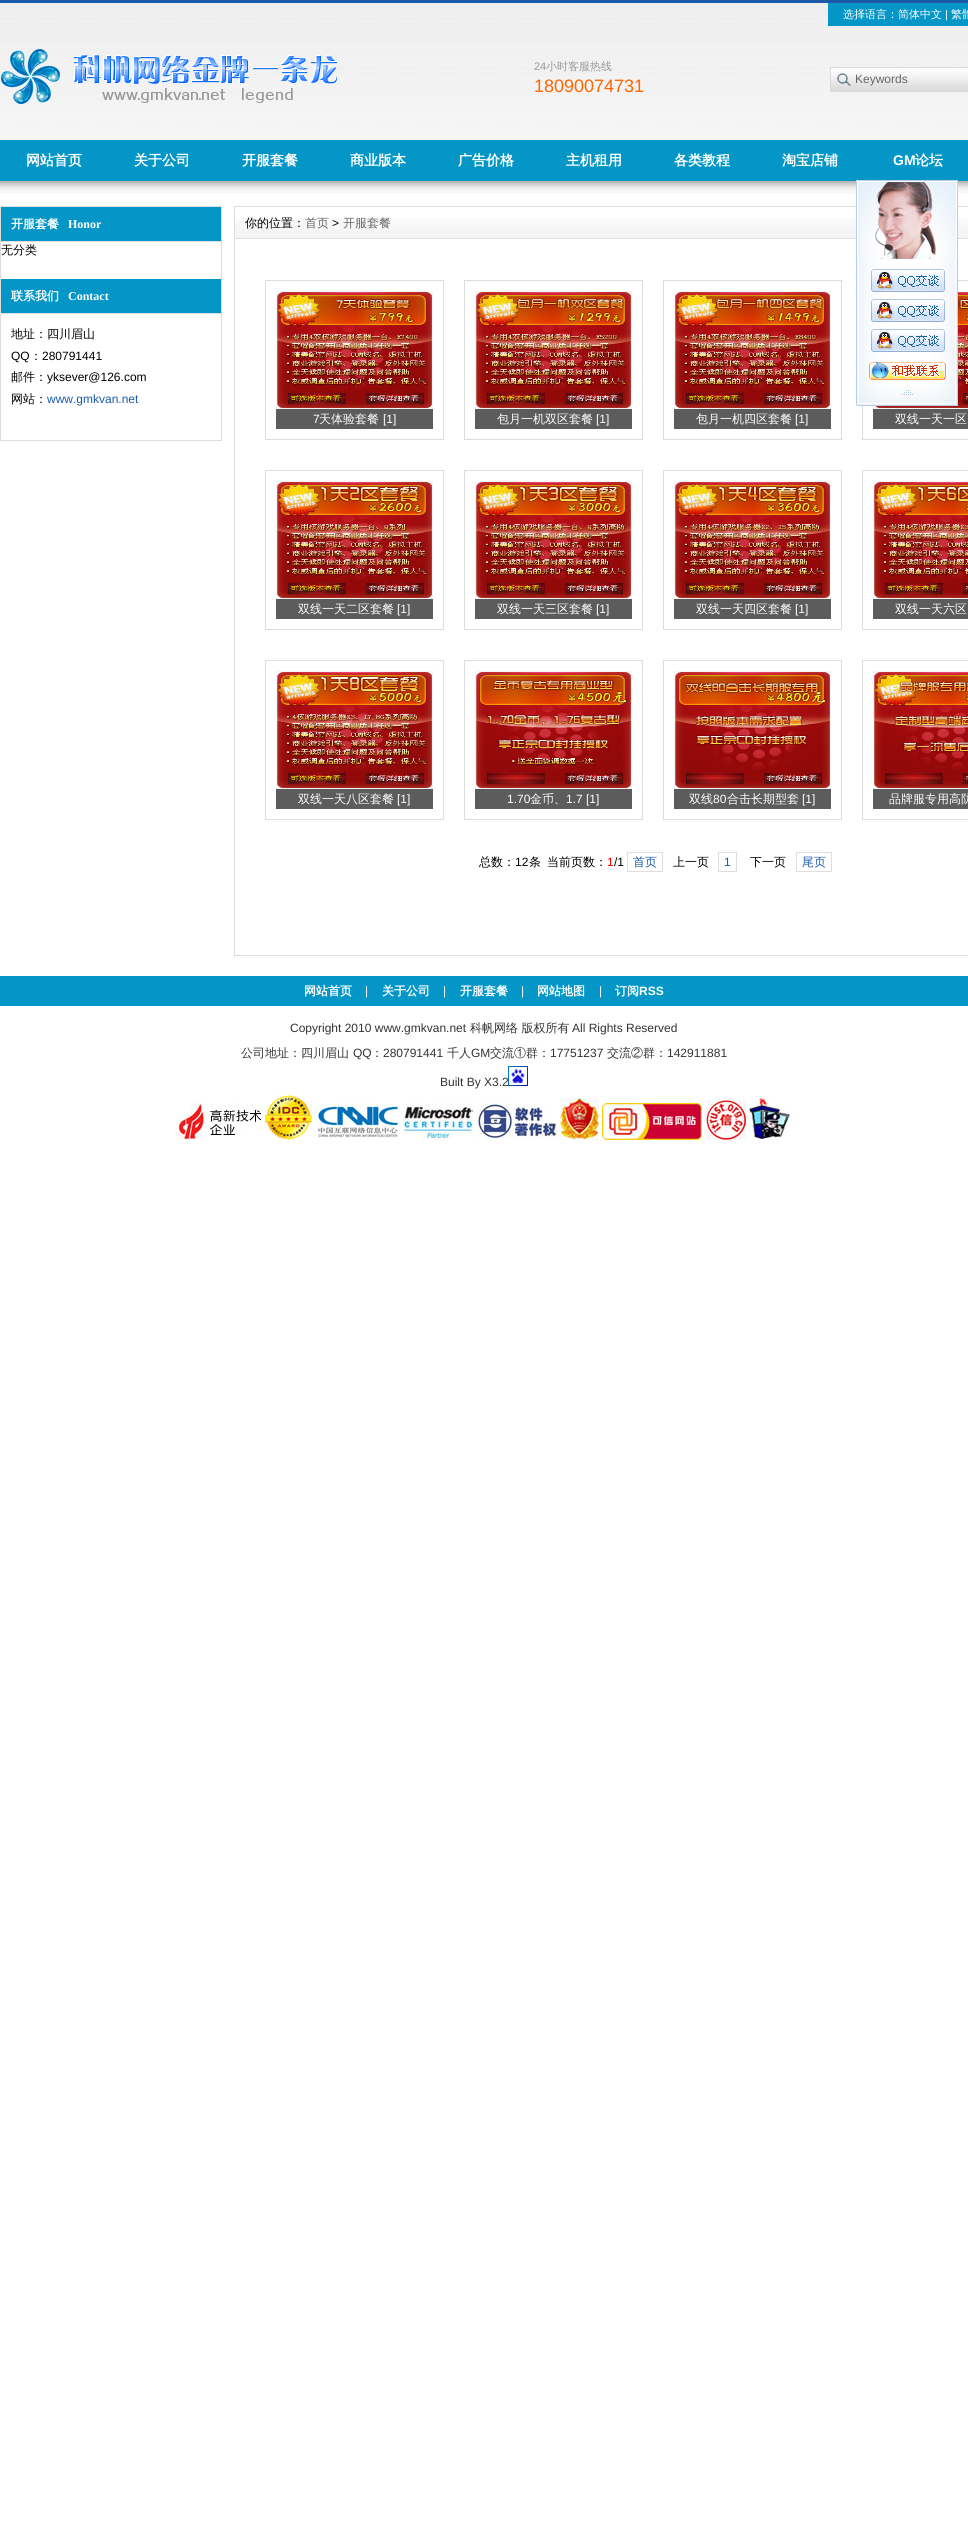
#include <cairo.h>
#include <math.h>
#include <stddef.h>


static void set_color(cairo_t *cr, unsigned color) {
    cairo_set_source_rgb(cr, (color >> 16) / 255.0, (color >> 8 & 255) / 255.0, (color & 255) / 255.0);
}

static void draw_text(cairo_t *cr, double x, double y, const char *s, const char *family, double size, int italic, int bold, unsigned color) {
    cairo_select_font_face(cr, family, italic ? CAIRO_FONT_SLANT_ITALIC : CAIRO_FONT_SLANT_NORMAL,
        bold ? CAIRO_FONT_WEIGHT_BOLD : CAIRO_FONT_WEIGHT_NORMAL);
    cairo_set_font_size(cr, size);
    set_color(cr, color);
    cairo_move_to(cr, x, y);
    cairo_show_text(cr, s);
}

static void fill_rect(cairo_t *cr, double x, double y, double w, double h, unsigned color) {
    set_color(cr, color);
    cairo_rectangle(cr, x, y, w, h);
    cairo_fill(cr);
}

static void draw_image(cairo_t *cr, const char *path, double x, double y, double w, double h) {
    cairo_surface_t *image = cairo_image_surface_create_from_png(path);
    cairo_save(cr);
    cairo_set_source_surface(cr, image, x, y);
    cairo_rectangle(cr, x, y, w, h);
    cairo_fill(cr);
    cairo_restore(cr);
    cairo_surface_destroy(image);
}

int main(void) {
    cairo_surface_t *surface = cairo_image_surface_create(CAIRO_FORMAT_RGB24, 968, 2528);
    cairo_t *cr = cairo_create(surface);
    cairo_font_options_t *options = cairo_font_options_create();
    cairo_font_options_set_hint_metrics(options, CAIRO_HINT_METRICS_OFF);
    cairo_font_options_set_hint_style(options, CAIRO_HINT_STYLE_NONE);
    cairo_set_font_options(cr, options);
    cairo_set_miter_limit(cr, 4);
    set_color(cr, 0xFFFFFF);
    cairo_paint(cr);
    draw_image(cr, "assets/img1.png", 0, 3, 968, 191);
    fill_rect(cr, 0, 0, 968, 3, 0x1B5AA9);
    fill_rect(cr, 828, 3, 140, 23, 0x0396C7);
    draw_text(cr, 843, 18, "选择语言：简体中文", "WenQuanYi Zen Hei Medium", 11, 0, 0, 0xFFFFFF);
    draw_text(cr, 945, 18, "|", "Liberation Sans", 11, 0, 0, 0xFFFFFF);
    draw_text(cr, 951, 18, "繁體", "WenQuanYi Zen Hei Medium", 11, 0, 0, 0xFFFFFF);
    draw_image(cr, "assets/img2.png", 1, 49, 336, 55);
    draw_text(cr, 534, 70, "24", "Liberation Sans", 11, 0, 0, 0x999999);
    draw_text(cr, 546, 70, "小时客服热线", "WenQuanYi Zen Hei Medium", 11, 0, 0, 0x999999);
    draw_text(cr, 534, 92, "18090074731", "Liberation Sans", 18, 0, 0, 0xFF6600);
    draw_image(cr, "assets/img3.png", 830, 67, 138, 25);
    draw_text(cr, 855, 83, "Keywords", "Liberation Sans", 12, 0, 0, 0x666666);
    fill_rect(cr, 0, 140, 968, 41, 0x0396C7);
    draw_text(cr, 26, 165, "网站首页", "WenQuanYi Zen Hei", 14, 0, 1, 0xFFFFFF);
    draw_text(cr, 134, 165, "关于公司", "WenQuanYi Zen Hei", 14, 0, 1, 0xFFFFFF);
    draw_text(cr, 242, 165, "开服套餐", "WenQuanYi Zen Hei", 14, 0, 1, 0xFFFFFF);
    draw_text(cr, 350, 165, "商业版本", "WenQuanYi Zen Hei", 14, 0, 1, 0xFFFFFF);
    draw_text(cr, 458, 165, "广告价格", "WenQuanYi Zen Hei", 14, 0, 1, 0xFFFFFF);
    draw_text(cr, 566, 165, "主机租用", "WenQuanYi Zen Hei", 14, 0, 1, 0xFFFFFF);
    draw_text(cr, 674, 165, "各类教程", "WenQuanYi Zen Hei", 14, 0, 1, 0xFFFFFF);
    draw_text(cr, 782, 165, "淘宝店铺", "WenQuanYi Zen Hei", 14, 0, 1, 0xFFFFFF);
    draw_text(cr, 893, 165, "GM", "Liberation Sans", 14, 0, 1, 0xFFFFFF);
    draw_text(cr, 915, 165, "论坛", "WenQuanYi Zen Hei", 14, 0, 1, 0xFFFFFF);
    cairo_rectangle(cr, 0.5, 206.5, 221, 234);
    set_color(cr, 0xDDDDDD);
    cairo_set_line_width(cr, 1);
    cairo_stroke(cr);
    fill_rect(cr, 1, 207, 220, 34, 0x0396C7);
    fill_rect(cr, 1, 241, 220, 1, 0xDDDDDD);
    draw_text(cr, 11, 228, "开服套餐", "WenQuanYi Zen Hei", 12, 0, 1, 0xFFFFFF);
    draw_text(cr, 68, 228, "Honor", "Liberation Serif", 12, 0, 1, 0xFFFFFF);
    draw_text(cr, 1, 254, "无分类", "WenQuanYi Zen Hei Medium", 12, 0, 0, 0x000000);
    fill_rect(cr, 1, 279, 220, 34, 0x0396C7);
    fill_rect(cr, 1, 313, 220, 1, 0xDDDDDD);
    draw_text(cr, 11, 300, "联系我们", "WenQuanYi Zen Hei", 12, 0, 1, 0xFFFFFF);
    draw_text(cr, 68, 300, "Contact", "Liberation Serif", 12, 0, 1, 0xFFFFFF);
    draw_text(cr, 11, 338, "地址：四川眉山", "WenQuanYi Zen Hei Medium", 12, 0, 0, 0x000000);
    draw_text(cr, 11, 360, "QQ", "Liberation Sans", 12, 0, 0, 0x000000);
    draw_text(cr, 30, 360, "：", "WenQuanYi Zen Hei Medium", 12, 0, 0, 0x000000);
    draw_text(cr, 42, 360, "280791441", "Liberation Sans", 12, 0, 0, 0x000000);
    draw_text(cr, 11, 381, "邮件：", "WenQuanYi Zen Hei Medium", 12, 0, 0, 0x000000);
    draw_text(cr, 47, 381, "yksever@126.com", "Liberation Sans", 12, 0, 0, 0x000000);
    draw_text(cr, 11, 403, "网站：", "WenQuanYi Zen Hei Medium", 12, 0, 0, 0x000000);
    draw_text(cr, 47, 403, "www.gmkvan.net", "Liberation Sans", 12, 0, 0, 0x1B5AA9);
    cairo_rectangle(cr, 234.5, 206.5, 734, 749);
    set_color(cr, 0xDDDDDD);
    cairo_stroke(cr);
    draw_image(cr, "assets/img4.png", 235, 218, 733, 21);
    draw_text(cr, 245, 227, "你的位置：", "WenQuanYi Zen Hei Medium", 12, 0, 0, 0x000000);
    draw_text(cr, 305, 227, "首页", "WenQuanYi Zen Hei Medium", 12, 0, 0, 0x666666);
    draw_text(cr, 332, 227, ">", "Liberation Sans", 12, 0, 0, 0x000000);
    draw_text(cr, 343, 227, "开服套餐", "WenQuanYi Zen Hei Medium", 12, 0, 0, 0x666666);
    cairo_rectangle(cr, 265.5, 280.5, 178, 159);
    set_color(cr, 0xDDDDDD);
    cairo_stroke(cr);
    cairo_rectangle(cr, 276.5, 291.5, 156, 117);
    set_color(cr, 0xF5F5F5);
    cairo_stroke(cr);
    draw_image(cr, "assets/img5.png", 277, 292, 155, 116);
    fill_rect(cr, 276, 409, 157, 20, 0x5C5C5C);
    draw_text(cr, 313, 423, "7", "Liberation Sans", 12, 0, 0, 0xFFFFFF);
    draw_text(cr, 319, 423, "天体验套餐", "WenQuanYi Zen Hei Medium", 12, 0, 0, 0xFFFFFF);
    draw_text(cr, 383, 423, "[1]", "Liberation Sans", 12, 0, 0, 0xFFFFFF);
    cairo_rectangle(cr, 464.5, 280.5, 178, 159);
    set_color(cr, 0xDDDDDD);
    cairo_stroke(cr);
    cairo_rectangle(cr, 475.5, 291.5, 156, 117);
    set_color(cr, 0xF5F5F5);
    cairo_stroke(cr);
    draw_image(cr, "assets/img6.png", 476, 292, 155, 116);
    fill_rect(cr, 475, 409, 157, 20, 0x5C5C5C);
    draw_text(cr, 497, 423, "包月一机双区套餐", "WenQuanYi Zen Hei Medium", 12, 0, 0, 0xFFFFFF);
    draw_text(cr, 596, 423, "[1]", "Liberation Sans", 12, 0, 0, 0xFFFFFF);
    cairo_rectangle(cr, 663.5, 280.5, 178, 159);
    set_color(cr, 0xDDDDDD);
    cairo_stroke(cr);
    cairo_rectangle(cr, 674.5, 291.5, 156, 117);
    set_color(cr, 0xF5F5F5);
    cairo_stroke(cr);
    draw_image(cr, "assets/img7.png", 675, 292, 155, 116);
    fill_rect(cr, 674, 409, 157, 20, 0x5C5C5C);
    draw_text(cr, 696, 423, "包月一机四区套餐", "WenQuanYi Zen Hei Medium", 12, 0, 0, 0xFFFFFF);
    draw_text(cr, 795, 423, "[1]", "Liberation Sans", 12, 0, 0, 0xFFFFFF);
    cairo_rectangle(cr, 862.5, 280.5, 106, 159);
    set_color(cr, 0xDDDDDD);
    cairo_stroke(cr);
    cairo_rectangle(cr, 873.5, 291.5, 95, 117);
    set_color(cr, 0xF5F5F5);
    cairo_stroke(cr);
    draw_image(cr, "assets/img8.png", 874, 292, 94, 116);
    fill_rect(cr, 873, 409, 95, 20, 0x5C5C5C);
    draw_text(cr, 895, 423, "双线一天一区", "WenQuanYi Zen Hei Medium", 12, 0, 0, 0xFFFFFF);
    cairo_rectangle(cr, 265.5, 470.5, 178, 159);
    set_color(cr, 0xDDDDDD);
    cairo_stroke(cr);
    cairo_rectangle(cr, 276.5, 481.5, 156, 117);
    set_color(cr, 0xF5F5F5);
    cairo_stroke(cr);
    draw_image(cr, "assets/img9.png", 277, 482, 155, 116);
    fill_rect(cr, 276, 599, 157, 20, 0x5C5C5C);
    draw_text(cr, 298, 613, "双线一天二区套餐", "WenQuanYi Zen Hei Medium", 12, 0, 0, 0xFFFFFF);
    draw_text(cr, 397, 613, "[1]", "Liberation Sans", 12, 0, 0, 0xFFFFFF);
    cairo_rectangle(cr, 464.5, 470.5, 178, 159);
    set_color(cr, 0xDDDDDD);
    cairo_stroke(cr);
    cairo_rectangle(cr, 475.5, 481.5, 156, 117);
    set_color(cr, 0xF5F5F5);
    cairo_stroke(cr);
    draw_image(cr, "assets/img10.png", 476, 482, 155, 116);
    fill_rect(cr, 475, 599, 157, 20, 0x5C5C5C);
    draw_text(cr, 497, 613, "双线一天三区套餐", "WenQuanYi Zen Hei Medium", 12, 0, 0, 0xFFFFFF);
    draw_text(cr, 596, 613, "[1]", "Liberation Sans", 12, 0, 0, 0xFFFFFF);
    cairo_rectangle(cr, 663.5, 470.5, 178, 159);
    set_color(cr, 0xDDDDDD);
    cairo_stroke(cr);
    cairo_rectangle(cr, 674.5, 481.5, 156, 117);
    set_color(cr, 0xF5F5F5);
    cairo_stroke(cr);
    draw_image(cr, "assets/img11.png", 675, 482, 155, 116);
    fill_rect(cr, 674, 599, 157, 20, 0x5C5C5C);
    draw_text(cr, 696, 613, "双线一天四区套餐", "WenQuanYi Zen Hei Medium", 12, 0, 0, 0xFFFFFF);
    draw_text(cr, 795, 613, "[1]", "Liberation Sans", 12, 0, 0, 0xFFFFFF);
    cairo_rectangle(cr, 862.5, 470.5, 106, 159);
    set_color(cr, 0xDDDDDD);
    cairo_stroke(cr);
    cairo_rectangle(cr, 873.5, 481.5, 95, 117);
    set_color(cr, 0xF5F5F5);
    cairo_stroke(cr);
    draw_image(cr, "assets/img12.png", 874, 482, 94, 116);
    fill_rect(cr, 873, 599, 95, 20, 0x5C5C5C);
    draw_text(cr, 895, 613, "双线一天六区", "WenQuanYi Zen Hei Medium", 12, 0, 0, 0xFFFFFF);
    cairo_rectangle(cr, 265.5, 660.5, 178, 159);
    set_color(cr, 0xDDDDDD);
    cairo_stroke(cr);
    cairo_rectangle(cr, 276.5, 671.5, 156, 117);
    set_color(cr, 0xF5F5F5);
    cairo_stroke(cr);
    draw_image(cr, "assets/img13.png", 277, 672, 155, 116);
    fill_rect(cr, 276, 789, 157, 20, 0x5C5C5C);
    draw_text(cr, 298, 803, "双线一天八区套餐", "WenQuanYi Zen Hei Medium", 12, 0, 0, 0xFFFFFF);
    draw_text(cr, 397, 803, "[1]", "Liberation Sans", 12, 0, 0, 0xFFFFFF);
    cairo_rectangle(cr, 464.5, 660.5, 178, 159);
    set_color(cr, 0xDDDDDD);
    cairo_stroke(cr);
    cairo_rectangle(cr, 475.5, 671.5, 156, 117);
    set_color(cr, 0xF5F5F5);
    cairo_stroke(cr);
    draw_image(cr, "assets/img14.png", 476, 672, 155, 116);
    fill_rect(cr, 475, 789, 157, 20, 0x5C5C5C);
    draw_text(cr, 507, 803, "1.70", "Liberation Sans", 12, 0, 0, 0xFFFFFF);
    draw_text(cr, 530, 803, "金币、", "WenQuanYi Zen Hei Medium", 12, 0, 0, 0xFFFFFF);
    draw_text(cr, 566, 803, "1.7 [1]", "Liberation Sans", 12, 0, 0, 0xFFFFFF);
    cairo_rectangle(cr, 663.5, 660.5, 178, 159);
    set_color(cr, 0xDDDDDD);
    cairo_stroke(cr);
    cairo_rectangle(cr, 674.5, 671.5, 156, 117);
    set_color(cr, 0xF5F5F5);
    cairo_stroke(cr);
    draw_image(cr, "assets/img15.png", 675, 672, 155, 116);
    fill_rect(cr, 674, 789, 157, 20, 0x5C5C5C);
    draw_text(cr, 689, 803, "双线", "WenQuanYi Zen Hei Medium", 12, 0, 0, 0xFFFFFF);
    draw_text(cr, 713, 803, "80", "Liberation Sans", 12, 0, 0, 0xFFFFFF);
    draw_text(cr, 727, 803, "合击长期型套", "WenQuanYi Zen Hei Medium", 12, 0, 0, 0xFFFFFF);
    draw_text(cr, 802, 803, "[1]", "Liberation Sans", 12, 0, 0, 0xFFFFFF);
    cairo_rectangle(cr, 862.5, 660.5, 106, 159);
    set_color(cr, 0xDDDDDD);
    cairo_stroke(cr);
    cairo_rectangle(cr, 873.5, 671.5, 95, 117);
    set_color(cr, 0xF5F5F5);
    cairo_stroke(cr);
    draw_image(cr, "assets/img16.png", 874, 672, 94, 116);
    fill_rect(cr, 873, 789, 95, 20, 0x5C5C5C);
    draw_text(cr, 889, 803, "品牌服专用高防", "WenQuanYi Zen Hei Medium", 12, 0, 0, 0xFFFFFF);
    draw_text(cr, 479, 866, "总数：", "WenQuanYi Zen Hei Medium", 12, 0, 0, 0x000000);
    draw_text(cr, 515, 866, "12", "Liberation Sans", 12, 0, 0, 0x000000);
    draw_text(cr, 529, 866, "条", "WenQuanYi Zen Hei Medium", 12, 0, 0, 0x000000);
    draw_text(cr, 547, 866, "当前页数：", "WenQuanYi Zen Hei Medium", 12, 0, 0, 0x000000);
    draw_text(cr, 607, 866, "1", "Liberation Sans", 12, 0, 0, 0xFF0000);
    draw_text(cr, 614, 866, "/1", "Liberation Sans", 12, 0, 0, 0x000000);
    cairo_rectangle(cr, 627.5, 852.5, 35, 19);
    set_color(cr, 0xDEDEDC);
    cairo_stroke(cr);
    draw_text(cr, 633, 866, "首页", "WenQuanYi Zen Hei Medium", 12, 0, 0, 0x1B5AA9);
    draw_text(cr, 673, 866, "上一页", "WenQuanYi Zen Hei Medium", 12, 0, 0, 0x000000);
    cairo_rectangle(cr, 718.5, 852.5, 18, 19);
    set_color(cr, 0xDEDEDC);
    cairo_stroke(cr);
    draw_text(cr, 724, 866, "1", "Liberation Sans", 12, 0, 0, 0x1B5AA9);
    draw_text(cr, 750, 866, "下一页", "WenQuanYi Zen Hei Medium", 12, 0, 0, 0x000000);
    cairo_rectangle(cr, 796.5, 852.5, 35, 19);
    set_color(cr, 0xDEDEDC);
    cairo_stroke(cr);
    draw_text(cr, 802, 866, "尾页", "WenQuanYi Zen Hei Medium", 12, 0, 0, 0x1B5AA9);
    draw_image(cr, "assets/img17.png", 856, 180, 102, 79);
    draw_image(cr, "assets/img18.png", 856, 259, 102, 126);
    draw_image(cr, "assets/img19.png", 871, 269, 74, 23);
    draw_image(cr, "assets/img19.png", 871, 299, 74, 23);
    draw_image(cr, "assets/img19.png", 871, 329, 74, 23);
    draw_image(cr, "assets/img20.png", 869, 361, 77, 19);
    draw_image(cr, "assets/img21.png", 856, 385, 102, 21);
    fill_rect(cr, 0, 976, 968, 30, 0x0396C7);
    draw_text(cr, 304, 995, "网站首页", "WenQuanYi Zen Hei", 12, 0, 1, 0xFFFFFF);
    draw_text(cr, 365, 995, "|", "Liberation Sans", 12, 0, 0, 0xFFFFFF);
    draw_text(cr, 382, 995, "关于公司", "WenQuanYi Zen Hei", 12, 0, 1, 0xFFFFFF);
    draw_text(cr, 443, 995, "|", "Liberation Sans", 12, 0, 0, 0xFFFFFF);
    draw_text(cr, 460, 995, "开服套餐", "WenQuanYi Zen Hei", 12, 0, 1, 0xFFFFFF);
    draw_text(cr, 521, 995, "|", "Liberation Sans", 12, 0, 0, 0xFFFFFF);
    draw_text(cr, 537, 995, "网站地图", "WenQuanYi Zen Hei", 12, 0, 1, 0xFFFFFF);
    draw_text(cr, 599, 995, "|", "Liberation Sans", 12, 0, 0, 0xFFFFFF);
    draw_text(cr, 615, 995, "订阅", "WenQuanYi Zen Hei", 12, 0, 1, 0xFFFFFF);
    draw_text(cr, 639, 995, "RSS", "Liberation Sans", 12, 0, 1, 0xFFFFFF);
    draw_text(cr, 290, 1032, "Copyright 2010 www.gmkvan.net", "Liberation Sans", 12, 0, 0, 0x333333);
    draw_text(cr, 470, 1032, "科帆网络 版权所有", "WenQuanYi Zen Hei Medium", 12, 0, 0, 0x333333);
    draw_text(cr, 572, 1032, "All Rights Reserved", "Liberation Sans", 12, 0, 0, 0x333333);
    draw_text(cr, 241, 1057, "公司地址：四川眉山", "WenQuanYi Zen Hei Medium", 12, 0, 0, 0x333333);
    draw_text(cr, 353, 1057, "QQ", "Liberation Sans", 12, 0, 0, 0x333333);
    draw_text(cr, 371, 1057, "：", "WenQuanYi Zen Hei Medium", 12, 0, 0, 0x333333);
    draw_text(cr, 383, 1057, "280791441", "Liberation Sans", 12, 0, 0, 0x333333);
    draw_text(cr, 447, 1057, "千人", "WenQuanYi Zen Hei Medium", 12, 0, 0, 0x333333);
    draw_text(cr, 471, 1057, "GM", "Liberation Sans", 12, 0, 0, 0x333333);
    draw_text(cr, 490, 1057, "交流①群：", "WenQuanYi Zen Hei Medium", 12, 0, 0, 0x333333);
    draw_text(cr, 550, 1057, "17751237", "Liberation Sans", 12, 0, 0, 0x333333);
    draw_text(cr, 607, 1057, "交流②群：", "WenQuanYi Zen Hei Medium", 12, 0, 0, 0x333333);
    draw_text(cr, 667, 1057, "142911881", "Liberation Sans", 12, 0, 0, 0x333333);
    draw_text(cr, 440, 1086, "Built By X3.2", "Liberation Sans", 12, 0, 0, 0x333333);
    draw_image(cr, "assets/img22.png", 508, 1066, 20, 20);
    draw_image(cr, "assets/img23.png", 178, 1103, 84, 37);
    draw_image(cr, "assets/img24.png", 265, 1095, 47, 45);
    draw_image(cr, "assets/img25.png", 316, 1103, 84, 35);
    draw_image(cr, "assets/img26.png", 403, 1103, 70, 37);
    draw_image(cr, "assets/img27.png", 477, 1103, 80, 37);
    draw_image(cr, "assets/img28.png", 560, 1098, 39, 42);
    draw_image(cr, "assets/img29.png", 602, 1103, 100, 37);
    draw_image(cr, "assets/img30.png", 706, 1100, 40, 40);
    draw_image(cr, "assets/img31.png", 749, 1098, 41, 41);
    cairo_surface_write_to_png(surface, "output.png");
    cairo_font_options_destroy(options);
    cairo_destroy(cr);
    cairo_surface_destroy(surface);
    return 0;
}
